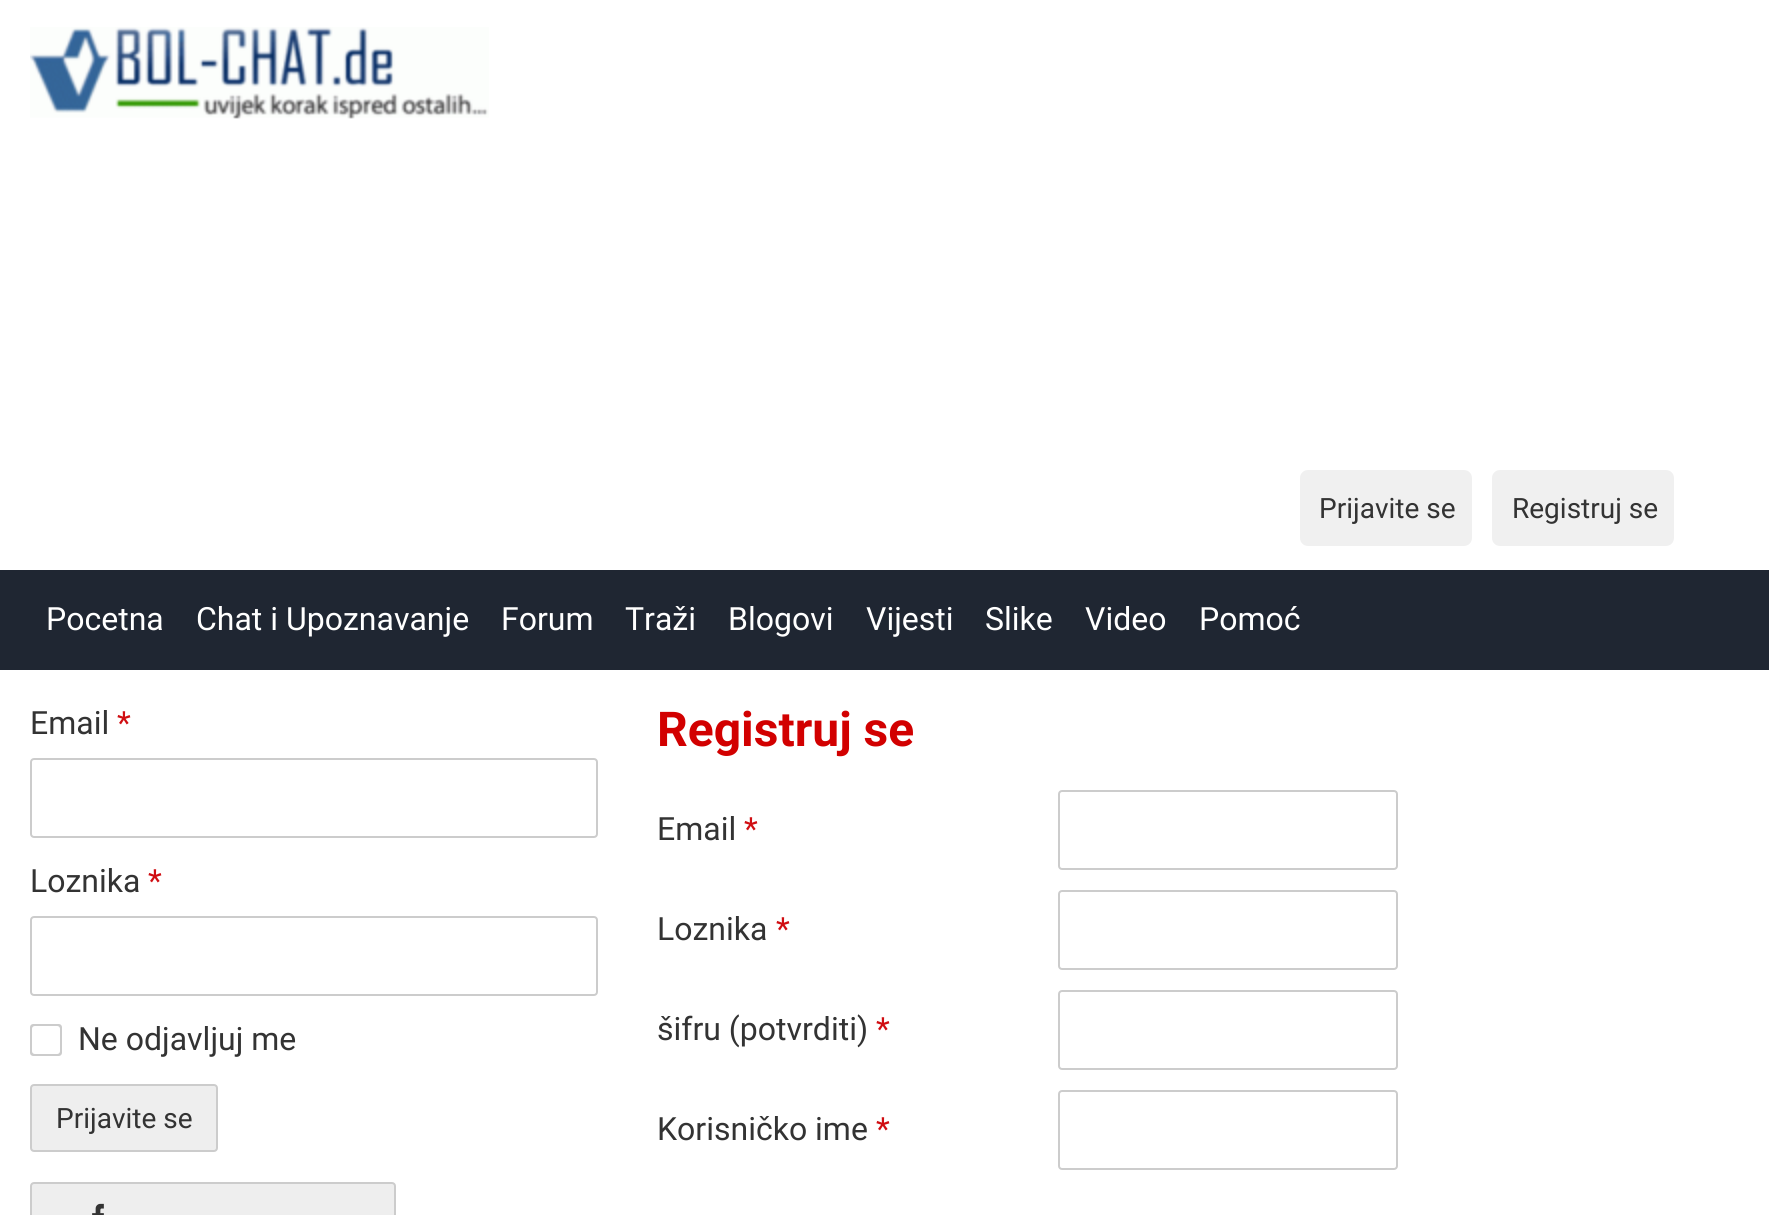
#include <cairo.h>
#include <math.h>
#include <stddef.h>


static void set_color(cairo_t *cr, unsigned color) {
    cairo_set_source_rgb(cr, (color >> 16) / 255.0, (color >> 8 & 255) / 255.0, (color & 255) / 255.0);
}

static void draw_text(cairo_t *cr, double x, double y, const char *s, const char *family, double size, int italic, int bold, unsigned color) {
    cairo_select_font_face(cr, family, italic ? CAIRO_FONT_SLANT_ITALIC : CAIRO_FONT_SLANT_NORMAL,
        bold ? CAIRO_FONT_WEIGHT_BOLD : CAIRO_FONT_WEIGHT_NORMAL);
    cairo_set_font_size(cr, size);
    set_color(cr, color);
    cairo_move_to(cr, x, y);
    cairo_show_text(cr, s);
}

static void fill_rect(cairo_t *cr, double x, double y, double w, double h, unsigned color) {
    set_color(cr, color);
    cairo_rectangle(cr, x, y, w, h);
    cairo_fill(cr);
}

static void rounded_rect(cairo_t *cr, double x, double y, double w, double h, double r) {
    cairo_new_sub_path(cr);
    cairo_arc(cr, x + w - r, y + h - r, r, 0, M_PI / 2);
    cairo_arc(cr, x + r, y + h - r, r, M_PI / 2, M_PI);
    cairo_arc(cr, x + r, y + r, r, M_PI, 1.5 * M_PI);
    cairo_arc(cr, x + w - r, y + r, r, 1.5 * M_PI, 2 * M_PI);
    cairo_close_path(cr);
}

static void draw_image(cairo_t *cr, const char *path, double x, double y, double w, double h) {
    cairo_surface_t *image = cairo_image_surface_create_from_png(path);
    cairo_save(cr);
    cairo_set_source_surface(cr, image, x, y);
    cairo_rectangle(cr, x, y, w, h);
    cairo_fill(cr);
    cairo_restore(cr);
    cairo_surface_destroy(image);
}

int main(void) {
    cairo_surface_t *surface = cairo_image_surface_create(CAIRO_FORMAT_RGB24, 1769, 1215);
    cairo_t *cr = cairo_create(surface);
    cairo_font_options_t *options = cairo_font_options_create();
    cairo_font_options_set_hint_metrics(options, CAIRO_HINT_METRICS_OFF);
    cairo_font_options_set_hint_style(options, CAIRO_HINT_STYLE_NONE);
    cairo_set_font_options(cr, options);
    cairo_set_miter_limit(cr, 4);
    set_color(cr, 0xFFFFFF);
    cairo_paint(cr);
    draw_image(cr, "assets/img1.png", 30, 27, 459, 92);
    fill_rect(cr, 0, 570, 1769, 100, 0x1F2632);
    set_color(cr, 0xF0F0F0);
    rounded_rect(cr, 1300, 470, 172, 76, 8);
    cairo_fill(cr);
    draw_text(cr, 1319, 518, "Prijavite se", "Roboto", 28, 0, 0, 0x333333);
    set_color(cr, 0xF0F0F0);
    rounded_rect(cr, 1492, 470, 182, 76, 8);
    cairo_fill(cr);
    draw_text(cr, 1512, 518, "Registruj se", "Roboto", 28, 0, 0, 0x333333);
    draw_text(cr, 46, 630, "Pocetna", "Roboto", 32, 0, 0, 0xFFFFFF);
    draw_text(cr, 196, 630, "Chat i Upoznavanje", "Roboto", 32, 0, 0, 0xFFFFFF);
    draw_text(cr, 501, 630, "Forum", "Roboto", 32, 0, 0, 0xFFFFFF);
    draw_text(cr, 625, 630, "Traži", "Roboto", 32, 0, 0, 0xFFFFFF);
    draw_text(cr, 728, 630, "Blogovi", "Roboto", 32, 0, 0, 0xFFFFFF);
    draw_text(cr, 866, 630, "Vijesti", "Roboto", 32, 0, 0, 0xFFFFFF);
    draw_text(cr, 985, 630, "Slike", "Roboto", 32, 0, 0, 0xFFFFFF);
    draw_text(cr, 1085, 630, "Video", "Roboto", 32, 0, 0, 0xFFFFFF);
    draw_text(cr, 1199, 630, "Pomoć", "Roboto", 32, 0, 0, 0xFFFFFF);
    draw_text(cr, 30, 734, "Email", "Roboto", 32, 0, 0, 0x333333);
    draw_text(cr, 117, 734, "*", "Roboto", 32, 0, 0, 0xD00E12);
    rounded_rect(cr, 31, 759, 566, 78, 3);
    set_color(cr, 0xCCCCCC);
    cairo_stroke(cr);
    draw_text(cr, 30, 892, "Loznika", "Roboto", 32, 0, 0, 0x333333);
    draw_text(cr, 148, 892, "*", "Roboto", 32, 0, 0, 0xD00E12);
    rounded_rect(cr, 31, 917, 566, 78, 3);
    set_color(cr, 0xCCCCCC);
    cairo_stroke(cr);
    draw_image(cr, "assets/img2.png", 30, 1024, 32, 32);
    draw_text(cr, 78, 1050, "Ne odjavljuj me", "Roboto", 32, 0, 0, 0x333333);
    set_color(cr, 0xEEEEEE);
    rounded_rect(cr, 31, 1085, 186, 66, 3);
    cairo_fill_preserve(cr);
    set_color(cr, 0xCCCCCC);
    cairo_stroke(cr);
    draw_text(cr, 56, 1128, "Prijavite se", "Roboto", 28, 0, 0, 0x333333);
    set_color(cr, 0xEEEEEE);
    rounded_rect(cr, 31, 1183, 364, 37, 3);
    cairo_fill_preserve(cr);
    set_color(cr, 0xCCCCCC);
    cairo_stroke(cr);
    draw_image(cr, "assets/img3.png", 92, 1203, 12, 12);
    draw_text(cr, 657, 746, "Registruj se", "Roboto", 48, 0, 1, 0xD20000);
    draw_text(cr, 657, 840, "Email", "Roboto", 32, 0, 0, 0x333333);
    draw_text(cr, 744, 840, "*", "Roboto", 32, 0, 0, 0xD00E12);
    rounded_rect(cr, 1059, 791, 338, 78, 3);
    set_color(cr, 0xCCCCCC);
    cairo_stroke(cr);
    draw_text(cr, 657, 940, "Loznika", "Roboto", 32, 0, 0, 0x333333);
    draw_text(cr, 776, 940, "*", "Roboto", 32, 0, 0, 0xD00E12);
    rounded_rect(cr, 1059, 891, 338, 78, 3);
    set_color(cr, 0xCCCCCC);
    cairo_stroke(cr);
    draw_text(cr, 657, 1040, "šifru (potvrditi)", "Roboto", 32, 0, 0, 0x333333);
    draw_text(cr, 876, 1040, "*", "Roboto", 32, 0, 0, 0xD00E12);
    rounded_rect(cr, 1059, 991, 338, 78, 3);
    set_color(cr, 0xCCCCCC);
    cairo_stroke(cr);
    draw_text(cr, 657, 1140, "Korisničko ime", "Roboto", 32, 0, 0, 0x333333);
    draw_text(cr, 876, 1140, "*", "Roboto", 32, 0, 0, 0xD00E12);
    rounded_rect(cr, 1059, 1091, 338, 78, 3);
    set_color(cr, 0xCCCCCC);
    cairo_stroke(cr);
    cairo_surface_write_to_png(surface, "output.png");
    cairo_font_options_destroy(options);
    cairo_destroy(cr);
    cairo_surface_destroy(surface);
    return 0;
}
